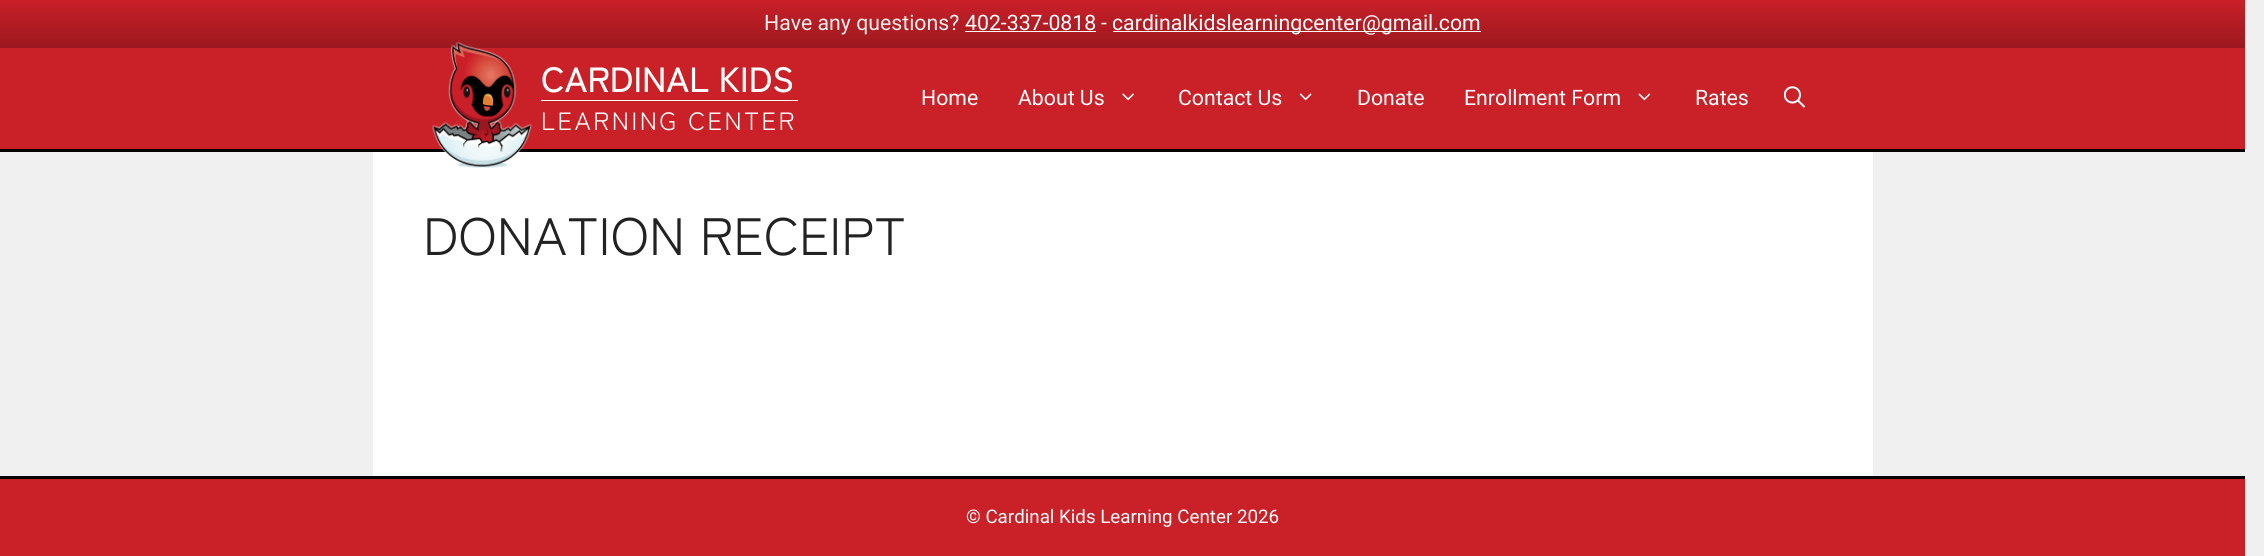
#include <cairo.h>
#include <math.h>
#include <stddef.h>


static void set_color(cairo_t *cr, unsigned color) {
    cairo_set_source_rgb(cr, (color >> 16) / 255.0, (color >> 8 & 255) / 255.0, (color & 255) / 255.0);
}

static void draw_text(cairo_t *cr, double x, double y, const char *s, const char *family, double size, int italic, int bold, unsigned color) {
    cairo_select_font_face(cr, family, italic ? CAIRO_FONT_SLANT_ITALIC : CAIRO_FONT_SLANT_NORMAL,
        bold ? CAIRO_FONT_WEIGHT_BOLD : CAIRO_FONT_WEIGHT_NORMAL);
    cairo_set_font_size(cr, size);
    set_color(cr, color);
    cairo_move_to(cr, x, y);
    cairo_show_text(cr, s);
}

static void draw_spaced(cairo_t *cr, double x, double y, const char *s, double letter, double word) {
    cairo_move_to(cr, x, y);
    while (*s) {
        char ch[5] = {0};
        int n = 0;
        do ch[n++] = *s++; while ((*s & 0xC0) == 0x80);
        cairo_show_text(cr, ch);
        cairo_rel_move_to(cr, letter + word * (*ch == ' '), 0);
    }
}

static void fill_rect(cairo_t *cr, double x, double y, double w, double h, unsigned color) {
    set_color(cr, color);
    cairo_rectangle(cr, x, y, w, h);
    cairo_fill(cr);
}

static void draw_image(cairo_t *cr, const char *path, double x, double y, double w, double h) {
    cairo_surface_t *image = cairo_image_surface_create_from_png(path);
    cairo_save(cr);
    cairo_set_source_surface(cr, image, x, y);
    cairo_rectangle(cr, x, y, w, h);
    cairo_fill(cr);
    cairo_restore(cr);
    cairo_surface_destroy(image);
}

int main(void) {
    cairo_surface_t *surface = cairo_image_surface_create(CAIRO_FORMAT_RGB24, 2264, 556);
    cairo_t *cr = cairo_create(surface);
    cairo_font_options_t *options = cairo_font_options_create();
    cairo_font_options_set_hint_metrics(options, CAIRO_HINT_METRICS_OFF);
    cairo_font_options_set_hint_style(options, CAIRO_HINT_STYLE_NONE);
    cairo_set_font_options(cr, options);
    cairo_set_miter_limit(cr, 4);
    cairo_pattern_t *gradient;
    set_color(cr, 0xF0F0F0);
    cairo_paint(cr);
    gradient = cairo_pattern_create_linear(1123, 0, 1123, 48);
    cairo_pattern_add_color_stop_rgba(gradient, 0, 0.792, 0.125, 0.157, 1);
    cairo_pattern_add_color_stop_rgba(gradient, 1, 0.612, 0.094, 0.118, 1);
    cairo_set_source(cr, gradient);
    cairo_pattern_destroy(gradient);
    cairo_rectangle(cr, 0, 0, 2245, 48);
    cairo_fill(cr);
    draw_text(cr, 764, 30, "Have any questions?", "Roboto", 21.25, 0, 0, 0xF0F0F0);
    draw_text(cr, 965, 30, "402-337-0818", "Roboto", 21.25, 0, 0, 0xFFFFFF);
    fill_rect(cr, 965, 31, 131, 1, 0xFFFFFF);
    draw_text(cr, 1101, 30, "-", "Roboto", 21.25, 0, 0, 0xF0F0F0);
    fill_rect(cr, 1113, 31, 368, 1, 0xFFFFFF);
    draw_text(cr, 1112, 30, "cardinalkidslearningcenter@gmail.com", "Roboto", 21.25, 0, 0, 0xFFFFFF);
    fill_rect(cr, 0, 48, 2245, 101, 0xCA2028);
    fill_rect(cr, 0, 149, 2245, 3, 0x000000);
    fill_rect(cr, 373, 152, 1500, 324, 0xFFFFFF);
    draw_image(cr, "assets/img1.png", 432, 42, 100, 126);
    fill_rect(cr, 541, 100, 257, 1, 0xFFFFFF);
    draw_text(cr, 541, 92, "CARDINAL KIDS", "Zen Kaku Gothic Antique Medium", 35, 0, 0, 0xFFFFFF);
    cairo_select_font_face(cr, "Zen Kaku Gothic Antique", CAIRO_FONT_SLANT_NORMAL, CAIRO_FONT_WEIGHT_NORMAL);
    cairo_set_font_size(cr, 25);
    draw_spaced(cr, 541, 130, "LEARNING CENTER", 2.5, 0);
    draw_text(cr, 921, 105, "Home", "Roboto", 21.25, 0, 0, 0xFFFFFF);
    draw_text(cr, 1018, 105, "About Us", "Roboto", 21.25, 0, 0, 0xFFFFFF);
    draw_image(cr, "assets/img2.png", 1122, 93, 12, 8);
    draw_text(cr, 1178, 105, "Contact Us", "Roboto", 21.25, 0, 0, 0xFFFFFF);
    draw_image(cr, "assets/img3.png", 1299, 93, 13, 8);
    draw_text(cr, 1357, 105, "Donate", "Roboto", 21.25, 0, 0, 0xFFFFFF);
    draw_text(cr, 1464, 105, "Enrollment Form", "Roboto", 21.25, 0, 0, 0xFFFFFF);
    draw_image(cr, "assets/img4.png", 1638, 93, 13, 8);
    draw_text(cr, 1695, 105, "Rates", "Roboto", 21.25, 0, 0, 0xFFFFFF);
    draw_image(cr, "assets/img5.png", 1784, 86, 21, 22);
    draw_text(cr, 423, 255, "DONATION RECEIPT", "Zen Kaku Gothic Antique", 52.5, 0, 0, 0x222222);
    fill_rect(cr, 0, 479, 2245, 77, 0xCA2028);
    fill_rect(cr, 0, 476, 2245, 3, 0x000000);
    draw_text(cr, 966, 523, "© Cardinal Kids Learning Center 2026", "Roboto", 18.75, 0, 0, 0xFFFFFF);
    cairo_surface_write_to_png(surface, "output.png");
    cairo_font_options_destroy(options);
    cairo_destroy(cr);
    cairo_surface_destroy(surface);
    return 0;
}
